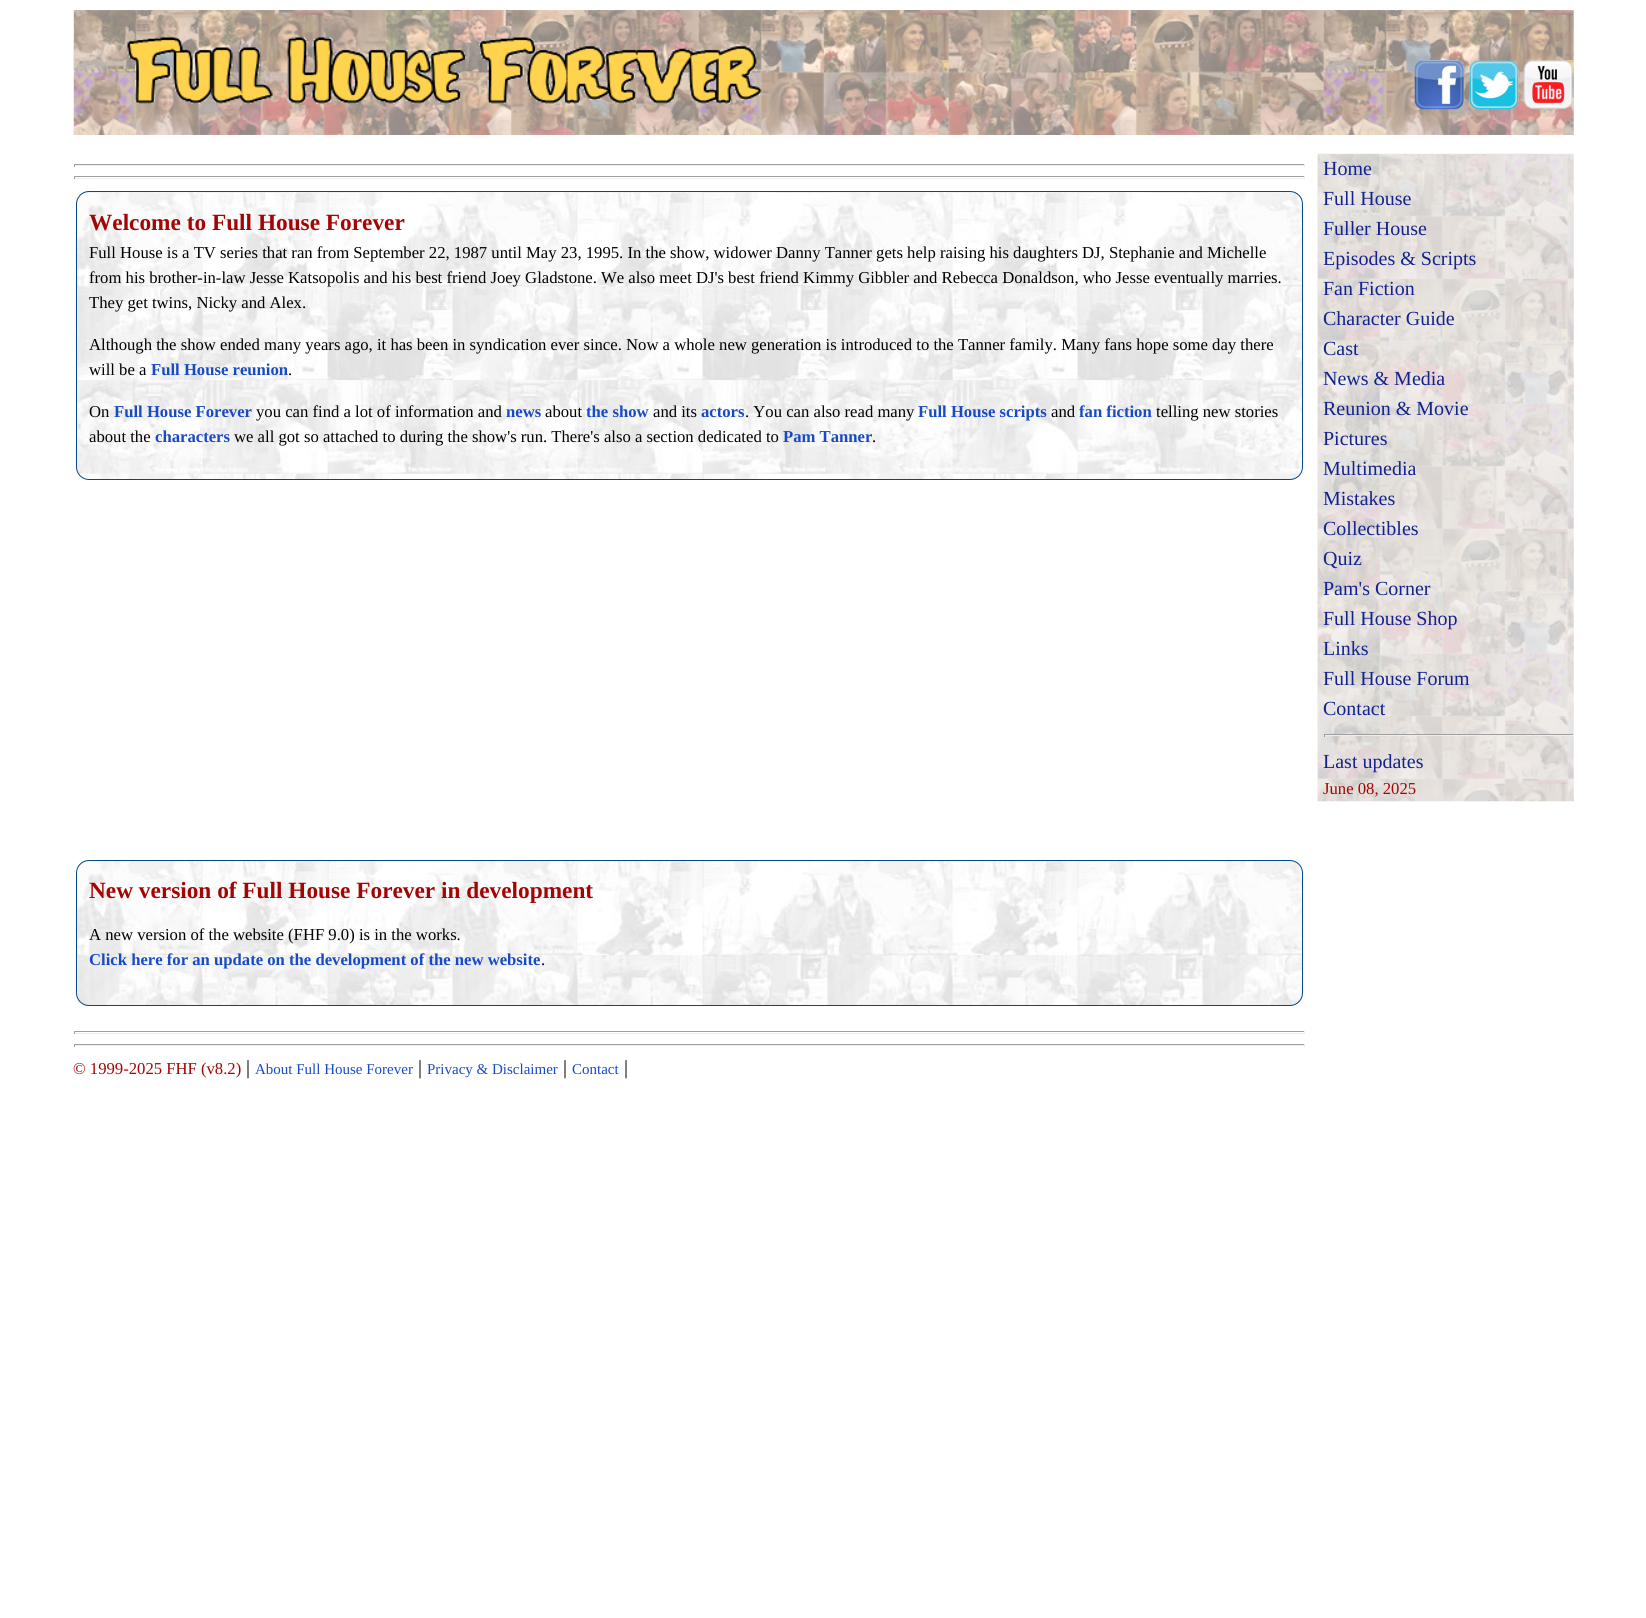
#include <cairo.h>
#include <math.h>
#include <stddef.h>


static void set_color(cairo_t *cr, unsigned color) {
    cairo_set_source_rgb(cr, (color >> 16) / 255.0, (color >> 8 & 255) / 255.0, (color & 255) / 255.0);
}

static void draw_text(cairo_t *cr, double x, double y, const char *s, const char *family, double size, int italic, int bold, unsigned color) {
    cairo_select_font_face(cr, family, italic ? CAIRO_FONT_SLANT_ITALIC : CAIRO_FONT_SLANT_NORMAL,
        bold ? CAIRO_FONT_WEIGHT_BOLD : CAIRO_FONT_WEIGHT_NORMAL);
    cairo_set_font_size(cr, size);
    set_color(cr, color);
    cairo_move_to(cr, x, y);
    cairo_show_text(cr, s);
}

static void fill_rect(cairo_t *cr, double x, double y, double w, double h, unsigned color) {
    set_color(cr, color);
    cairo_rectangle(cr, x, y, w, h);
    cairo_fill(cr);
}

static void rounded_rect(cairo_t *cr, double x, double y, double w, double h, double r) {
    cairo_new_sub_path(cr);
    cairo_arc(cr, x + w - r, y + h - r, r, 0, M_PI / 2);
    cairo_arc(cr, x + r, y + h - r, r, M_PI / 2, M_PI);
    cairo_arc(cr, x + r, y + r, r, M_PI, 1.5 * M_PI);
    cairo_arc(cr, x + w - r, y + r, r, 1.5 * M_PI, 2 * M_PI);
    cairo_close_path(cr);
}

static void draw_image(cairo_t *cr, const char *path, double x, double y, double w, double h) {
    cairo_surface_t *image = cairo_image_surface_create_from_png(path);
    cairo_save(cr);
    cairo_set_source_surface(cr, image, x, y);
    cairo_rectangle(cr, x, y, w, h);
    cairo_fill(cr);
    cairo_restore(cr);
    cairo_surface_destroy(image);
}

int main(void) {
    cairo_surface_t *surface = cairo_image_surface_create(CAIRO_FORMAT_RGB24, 1646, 1618);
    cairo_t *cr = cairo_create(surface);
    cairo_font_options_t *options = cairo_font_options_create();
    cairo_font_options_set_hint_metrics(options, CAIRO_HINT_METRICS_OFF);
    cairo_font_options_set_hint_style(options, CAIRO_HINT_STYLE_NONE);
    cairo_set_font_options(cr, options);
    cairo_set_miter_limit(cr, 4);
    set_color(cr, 0xFFFFFF);
    cairo_paint(cr);
    draw_image(cr, "assets/img1.png", 73, 10, 1501, 125);
    draw_image(cr, "assets/img2.png", 126, 37, 636, 67);
    draw_image(cr, "assets/img3.png", 1414, 60, 50, 50);
    draw_image(cr, "assets/img4.png", 1469, 60, 50, 50);
    draw_image(cr, "assets/img5.png", 1523, 60, 50, 49);
    fill_rect(cr, 74, 164, 1231, 1, 0x9F9F9F);
    fill_rect(cr, 1304, 164, 1, 3, 0xEEEEEE);
    fill_rect(cr, 74, 165, 1231, 1, 0xEEEEEE);
    fill_rect(cr, 74, 164, 1, 3, 0x9F9F9F);
    fill_rect(cr, 74, 176, 1231, 1, 0x9F9F9F);
    fill_rect(cr, 1304, 176, 1, 3, 0xEEEEEE);
    fill_rect(cr, 74, 178, 1231, 1, 0xEEEEEE);
    fill_rect(cr, 74, 176, 1, 3, 0x9F9F9F);
    draw_image(cr, "assets/img6.png", 76, 191, 1227, 289);
    rounded_rect(cr, 76.5, 191.5, 1226, 288, 12.5);
    set_color(cr, 0x054889);
    cairo_set_line_width(cr, 1);
    cairo_stroke(cr);
    draw_text(cr, 89, 230, "Welcome to Full House Forever", "Liberation Serif", 23.3, 0, 1, 0xA40404);
    draw_text(cr, 89, 258, "Full House is a TV series that ran from September 22, 1987 until May 23, 1995. In the show, widower Danny Tanner gets help raising his daughters DJ, Stephanie and Michelle", "Liberation Serif", 16.67, 0, 0, 0x000000);
    draw_text(cr, 89, 283, "from his brother-in-law Jesse Katsopolis and his best friend Joey Gladstone. We also meet DJ's best friend Kimmy Gibbler and Rebecca Donaldson, who Jesse eventually marries.", "Liberation Serif", 16.67, 0, 0, 0x000000);
    draw_text(cr, 89, 308, "They get twins, Nicky and Alex.", "Liberation Serif", 16.67, 0, 0, 0x000000);
    draw_text(cr, 89, 350, "Although the show ended many years ago, it has been in syndication ever since. Now a whole new generation is introduced to the Tanner family. Many fans hope some day there", "Liberation Serif", 16.67, 0, 0, 0x000000);
    draw_text(cr, 89, 375, "will be a", "Liberation Serif", 16.67, 0, 0, 0x000000);
    draw_text(cr, 151, 375, "Full House reunion", "Liberation Serif", 16.67, 0, 1, 0x1849C6);
    draw_text(cr, 288, 375, ".", "Liberation Serif", 16.67, 0, 0, 0x000000);
    draw_text(cr, 89, 417, "On", "Liberation Serif", 16.67, 0, 0, 0x000000);
    draw_text(cr, 114, 417, "Full House Forever", "Liberation Serif", 16.67, 0, 1, 0x1849C6);
    draw_text(cr, 256, 417, "you can find a lot of information and", "Liberation Serif", 16.67, 0, 0, 0x000000);
    draw_text(cr, 506, 417, "news", "Liberation Serif", 16.67, 0, 1, 0x1849C6);
    draw_text(cr, 545, 417, "about", "Liberation Serif", 16.67, 0, 0, 0x000000);
    draw_text(cr, 586, 417, "the show", "Liberation Serif", 16.67, 0, 1, 0x1849C6);
    draw_text(cr, 653, 417, "and its", "Liberation Serif", 16.67, 0, 0, 0x000000);
    draw_text(cr, 701, 417, "actors", "Liberation Serif", 16.67, 0, 1, 0x1849C6);
    draw_text(cr, 745, 417, ". You can also read many", "Liberation Serif", 16.67, 0, 0, 0x000000);
    draw_text(cr, 918, 417, "Full House scripts", "Liberation Serif", 16.67, 0, 1, 0x1849C6);
    draw_text(cr, 1051, 417, "and", "Liberation Serif", 16.67, 0, 0, 0x000000);
    draw_text(cr, 1079, 417, "fan fiction", "Liberation Serif", 16.67, 0, 1, 0x1849C6);
    draw_text(cr, 1156, 417, "telling new stories", "Liberation Serif", 16.67, 0, 0, 0x000000);
    draw_text(cr, 89, 442, "about the", "Liberation Serif", 16.67, 0, 0, 0x000000);
    draw_text(cr, 155, 442, "characters", "Liberation Serif", 16.67, 0, 1, 0x1849C6);
    draw_text(cr, 234, 442, "we all got so attached to during the show's run. There's also a section dedicated to", "Liberation Serif", 16.67, 0, 0, 0x000000);
    draw_text(cr, 783, 442, "Pam Tanner", "Liberation Serif", 16.67, 0, 1, 0x1849C6);
    draw_text(cr, 872, 442, ".", "Liberation Serif", 16.67, 0, 0, 0x000000);
    draw_image(cr, "assets/img7.png", 76, 860, 1227, 146);
    rounded_rect(cr, 76.5, 860.5, 1226, 145, 12.5);
    set_color(cr, 0x054889);
    cairo_stroke(cr);
    draw_text(cr, 89, 898, "New version of Full House Forever in development", "Liberation Serif", 23.3, 0, 1, 0xA40404);
    draw_text(cr, 89, 940, "A new version of the website (FHF 9.0) is in the works.", "Liberation Serif", 16.67, 0, 0, 0x000000);
    draw_text(cr, 89, 965, "Click here for an update on the development of the new website", "Liberation Serif", 16.67, 0, 1, 0x1849C6);
    draw_text(cr, 541, 965, ".", "Liberation Serif", 16.67, 0, 0, 0x000000);
    draw_image(cr, "assets/img8.png", 1317, 153, 257, 649);
    draw_text(cr, 1323, 175, "Home", "Liberation Serif", 20, 0, 0, 0x12238D);
    draw_text(cr, 1323, 205, "Full House", "Liberation Serif", 20, 0, 0, 0x12238D);
    draw_text(cr, 1323, 235, "Fuller House", "Liberation Serif", 20, 0, 0, 0x12238D);
    draw_text(cr, 1323, 265, "Episodes & Scripts", "Liberation Serif", 20, 0, 0, 0x12238D);
    draw_text(cr, 1323, 295, "Fan Fiction", "Liberation Serif", 20, 0, 0, 0x12238D);
    draw_text(cr, 1323, 325, "Character Guide", "Liberation Serif", 20, 0, 0, 0x12238D);
    draw_text(cr, 1323, 355, "Cast", "Liberation Serif", 20, 0, 0, 0x12238D);
    draw_text(cr, 1323, 385, "News & Media", "Liberation Serif", 20, 0, 0, 0x12238D);
    draw_text(cr, 1323, 415, "Reunion & Movie", "Liberation Serif", 20, 0, 0, 0x12238D);
    draw_text(cr, 1323, 445, "Pictures", "Liberation Serif", 20, 0, 0, 0x12238D);
    draw_text(cr, 1323, 475, "Multimedia", "Liberation Serif", 20, 0, 0, 0x12238D);
    draw_text(cr, 1323, 505, "Mistakes", "Liberation Serif", 20, 0, 0, 0x12238D);
    draw_text(cr, 1323, 535, "Collectibles", "Liberation Serif", 20, 0, 0, 0x12238D);
    draw_text(cr, 1323, 565, "Quiz", "Liberation Serif", 20, 0, 0, 0x12238D);
    draw_text(cr, 1323, 595, "Pam's Corner", "Liberation Serif", 20, 0, 0, 0x12238D);
    draw_text(cr, 1323, 625, "Full House Shop", "Liberation Serif", 20, 0, 0, 0x12238D);
    draw_text(cr, 1323, 655, "Links", "Liberation Serif", 20, 0, 0, 0x12238D);
    draw_text(cr, 1323, 685, "Full House Forum", "Liberation Serif", 20, 0, 0, 0x12238D);
    draw_text(cr, 1323, 715, "Contact", "Liberation Serif", 20, 0, 0, 0x12238D);
    fill_rect(cr, 1324, 734, 250, 1, 0x9F9F9F);
    fill_rect(cr, 1573, 734, 1, 3, 0xEEEEEE);
    fill_rect(cr, 1324, 735, 250, 1, 0xEEEEEE);
    fill_rect(cr, 1324, 734, 1, 3, 0x9F9F9F);
    draw_text(cr, 1323, 768, "Last updates", "Liberation Serif", 20, 0, 0, 0x12238D);
    draw_text(cr, 1323, 794, "June 08, 2025", "Liberation Serif", 16.67, 0, 0, 0xA40404);
    fill_rect(cr, 74, 1031, 1231, 1, 0x9F9F9F);
    fill_rect(cr, 1304, 1031, 1, 3, 0xEEEEEE);
    fill_rect(cr, 74, 1033, 1231, 1, 0xEEEEEE);
    fill_rect(cr, 74, 1031, 1, 3, 0x9F9F9F);
    fill_rect(cr, 74, 1044, 1231, 1, 0x9F9F9F);
    fill_rect(cr, 1304, 1044, 1, 3, 0xEEEEEE);
    fill_rect(cr, 74, 1045, 1231, 1, 0xEEEEEE);
    fill_rect(cr, 74, 1044, 1, 3, 0x9F9F9F);
    draw_text(cr, 73, 1074, "© 1999-2025 FHF (v8.2)", "Liberation Serif", 16.67, 0, 0, 0xA40404);
    draw_text(cr, 246, 1074, "|", "Liberation Serif", 20, 0, 0, 0x000000);
    draw_text(cr, 255, 1074, "About Full House Forever", "Liberation Serif", 15, 0, 0, 0x1849C6);
    draw_text(cr, 418, 1074, "|", "Liberation Serif", 20, 0, 0, 0x000000);
    draw_text(cr, 427, 1074, "Privacy & Disclaimer", "Liberation Serif", 15, 0, 0, 0x1849C6);
    draw_text(cr, 563, 1074, "|", "Liberation Serif", 20, 0, 0, 0x000000);
    draw_text(cr, 572, 1074, "Contact", "Liberation Serif", 15, 0, 0, 0x1849C6);
    draw_text(cr, 624, 1074, "|", "Liberation Serif", 20, 0, 0, 0x000000);
    cairo_surface_write_to_png(surface, "output.png");
    cairo_font_options_destroy(options);
    cairo_destroy(cr);
    cairo_surface_destroy(surface);
    return 0;
}
